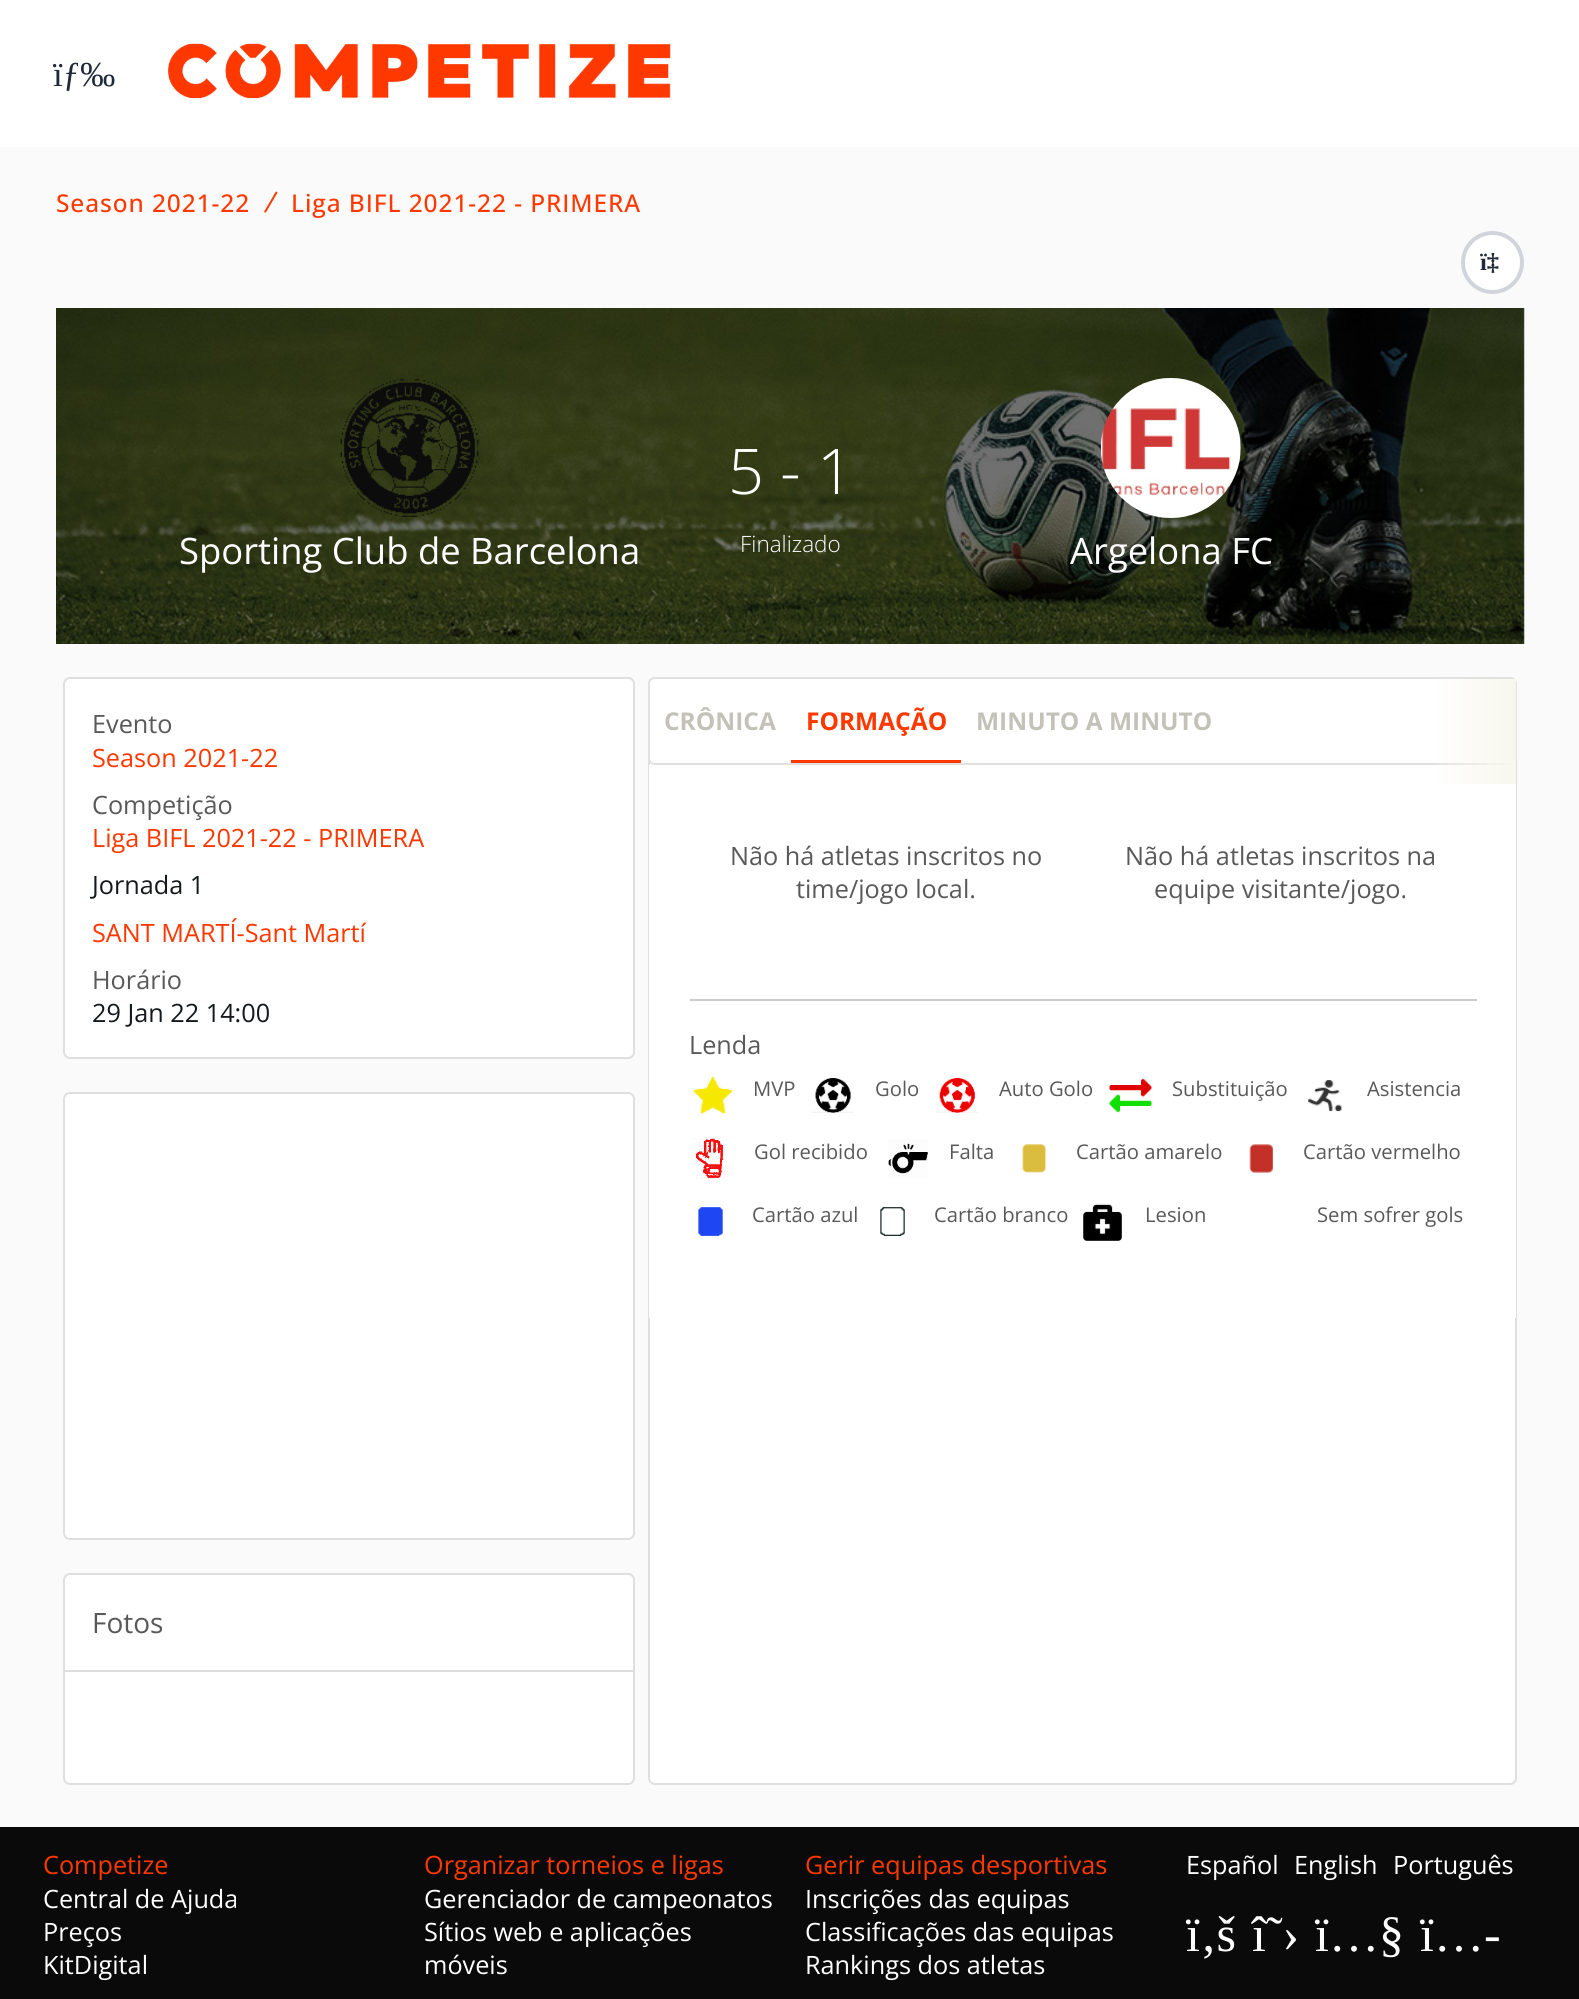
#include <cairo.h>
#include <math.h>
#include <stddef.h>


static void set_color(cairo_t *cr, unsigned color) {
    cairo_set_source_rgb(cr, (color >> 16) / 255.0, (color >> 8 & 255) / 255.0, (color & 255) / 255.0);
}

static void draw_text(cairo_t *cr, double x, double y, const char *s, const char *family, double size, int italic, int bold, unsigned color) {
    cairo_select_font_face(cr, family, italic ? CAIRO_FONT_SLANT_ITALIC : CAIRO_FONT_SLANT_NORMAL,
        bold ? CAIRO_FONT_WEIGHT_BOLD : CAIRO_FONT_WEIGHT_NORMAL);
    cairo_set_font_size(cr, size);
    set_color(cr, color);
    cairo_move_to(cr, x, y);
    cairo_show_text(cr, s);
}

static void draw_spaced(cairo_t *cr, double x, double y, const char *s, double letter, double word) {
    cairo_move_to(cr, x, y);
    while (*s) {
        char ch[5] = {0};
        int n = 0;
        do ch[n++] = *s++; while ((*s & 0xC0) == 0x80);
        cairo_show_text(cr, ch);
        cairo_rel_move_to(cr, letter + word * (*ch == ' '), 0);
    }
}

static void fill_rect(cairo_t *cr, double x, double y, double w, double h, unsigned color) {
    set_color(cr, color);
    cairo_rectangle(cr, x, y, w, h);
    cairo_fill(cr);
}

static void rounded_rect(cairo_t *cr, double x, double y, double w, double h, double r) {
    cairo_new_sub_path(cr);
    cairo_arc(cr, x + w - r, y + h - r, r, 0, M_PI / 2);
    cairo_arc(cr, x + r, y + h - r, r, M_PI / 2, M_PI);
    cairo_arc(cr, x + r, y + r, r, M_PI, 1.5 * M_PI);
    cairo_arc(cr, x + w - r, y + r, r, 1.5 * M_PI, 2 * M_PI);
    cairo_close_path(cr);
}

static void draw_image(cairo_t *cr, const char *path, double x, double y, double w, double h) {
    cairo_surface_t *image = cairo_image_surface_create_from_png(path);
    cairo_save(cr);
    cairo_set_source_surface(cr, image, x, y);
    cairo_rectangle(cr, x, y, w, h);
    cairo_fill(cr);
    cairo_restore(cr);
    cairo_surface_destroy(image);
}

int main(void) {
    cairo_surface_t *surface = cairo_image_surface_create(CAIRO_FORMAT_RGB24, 1579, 1999);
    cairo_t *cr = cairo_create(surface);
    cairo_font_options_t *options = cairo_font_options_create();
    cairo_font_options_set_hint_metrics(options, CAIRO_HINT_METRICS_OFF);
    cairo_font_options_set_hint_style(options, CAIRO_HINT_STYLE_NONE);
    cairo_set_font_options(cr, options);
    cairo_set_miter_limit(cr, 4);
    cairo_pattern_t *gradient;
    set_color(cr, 0xFAFAFA);
    cairo_paint(cr);
    fill_rect(cr, 0, 0, 1579, 147, 0xFFFFFF);
    draw_text(cr, 53, 86, "ïƒ‰", "Liberation Serif", 35, 0, 0, 0x1F2937);
    draw_image(cr, "assets/img1.png", 168, 43, 503, 56);
    cairo_select_font_face(cr, "Open Sans Medium", CAIRO_FONT_SLANT_NORMAL, CAIRO_FONT_WEIGHT_NORMAL);
    cairo_set_font_size(cr, 24.5);
    set_color(cr, 0xFF3800);
    draw_spaced(cr, 56, 212, "Season 2021-22", 0.9, 0);
    draw_image(cr, "assets/img2.png", 264, 191, 14, 22);
    draw_spaced(cr, 291, 212, "Liga BIFL 2021-22 - PRIMERA", 0.9, 0);
    set_color(cr, 0xFFFFFF);
    cairo_new_path(cr);
    cairo_arc(cr, 1492.5, 262.5, 29.5, 0, 2 * M_PI);
    cairo_fill_preserve(cr);
    set_color(cr, 0xD1D5DB);
    cairo_set_line_width(cr, 4);
    cairo_stroke(cr);
    draw_text(cr, 1480, 270, "ï‡", "Liberation Serif", 24.5, 0, 1, 0x1F2937);
    draw_image(cr, "assets/img3.png", 56, 308, 1469, 336);
    draw_image(cr, "assets/img4.png", 340, 379, 139, 138);
    draw_text(cr, 179, 564, "Sporting Club de Barcelona", "Open Sans", 36.4, 0, 0, 0xFFFFFF);
    draw_text(cr, 728, 494, "5 - 1", "Open Sans Light", 63, 0, 0, 0xFFFFFF);
    draw_text(cr, 740, 552, "Finalizado", "Open Sans Light", 22.5, 0, 0, 0xFFFFFF);
    draw_image(cr, "assets/img5.png", 1100, 378, 141, 140);
    draw_text(cr, 1070, 564, "Argelona FC", "Open Sans", 36.4, 0, 0, 0xFFFFFF);
    rounded_rect(cr, 64, 678, 570, 380, 6);
    cairo_fill_preserve(cr);
    set_color(cr, 0xDFDFDF);
    cairo_set_line_width(cr, 2);
    cairo_stroke(cr);
    draw_text(cr, 92, 733, "Evento", "Open Sans", 25.25, 0, 0, 0x595959);
    draw_text(cr, 92, 767, "Season 2021-22", "Open Sans", 25.25, 0, 0, 0xFF3800);
    draw_text(cr, 92, 814, "Competição", "Open Sans", 25.25, 0, 0, 0x595959);
    draw_text(cr, 92, 847, "Liga BIFL 2021-22 - PRIMERA", "Open Sans", 25.25, 0, 0, 0xFF3800);
    draw_text(cr, 92, 894, "Jornada 1", "Open Sans", 25.25, 0, 0, 0x14191D);
    draw_text(cr, 92, 942, "SANT MARTÍ-Sant Martí", "Open Sans", 25.25, 0, 0, 0xFF3800);
    draw_text(cr, 92, 989, "Horário", "Open Sans", 25.25, 0, 0, 0x595959);
    draw_text(cr, 92, 1022, "29 Jan 22 14:00", "Open Sans", 25.25, 0, 0, 0x14191D);
    set_color(cr, 0xFFFFFF);
    rounded_rect(cr, 64, 1093, 570, 446, 6);
    cairo_fill_preserve(cr);
    set_color(cr, 0xDFDFDF);
    cairo_stroke(cr);
    set_color(cr, 0xFFFFFF);
    rounded_rect(cr, 64, 1574, 570, 210, 6);
    cairo_fill_preserve(cr);
    set_color(cr, 0xDFDFDF);
    cairo_stroke(cr);
    fill_rect(cr, 65, 1670, 569, 2, 0xDDDDDD);
    draw_text(cr, 92, 1633, "Fotos", "Open Sans", 28, 0, 0, 0x595959);
    set_color(cr, 0xFFFFFF);
    rounded_rect(cr, 649, 678, 867, 1106, 6);
    cairo_fill_preserve(cr);
    set_color(cr, 0xDFDFDF);
    cairo_stroke(cr);
    set_color(cr, 0xFFFFFF);
    rounded_rect(cr, 648, 677, 869, 88, 7);
    cairo_fill(cr);
    rounded_rect(cr, 649, 678, 867, 86, 6);
    cairo_set_source_rgba(cr, 0, 0, 0, 0.12);
    cairo_stroke(cr);
    draw_text(cr, 664, 730, "CRÔNICA", "Open Sans", 24.5, 0, 1, 0xC3C2B9);
    fill_rect(cr, 791, 760, 170, 3, 0xFF3800);
    draw_text(cr, 806, 730, "FORMAÇÃO", "Open Sans", 24.5, 0, 1, 0xFF3800);
    draw_text(cr, 976, 730, "MINUTO A MINUTO", "Open Sans", 24.5, 0, 1, 0xC3C2B9);
    fill_rect(cr, 649, 765, 867, 553, 0xFFFFFF);
    gradient = cairo_pattern_create_linear(1516, 732, 1428, 732);
    cairo_pattern_add_color_stop_rgba(gradient, 0, 0.973, 0.969, 0.933, 1);
    cairo_pattern_add_color_stop_rgba(gradient, 1, 0.973, 0.969, 0.933, 0);
    cairo_set_source(cr, gradient);
    cairo_pattern_destroy(gradient);
    cairo_rectangle(cr, 1438, 679, 78, 105);
    cairo_fill(cr);
    draw_text(cr, 730, 865, "Não há atletas inscritos no", "Open Sans", 25.25, 0, 0, 0x595959);
    draw_text(cr, 796, 898, "time/jogo local.", "Open Sans", 25.25, 0, 0, 0x595959);
    draw_text(cr, 1125, 865, "Não há atletas inscritos na", "Open Sans", 25.25, 0, 0, 0x595959);
    draw_text(cr, 1154, 898, "equipe visitante/jogo.", "Open Sans", 25.25, 0, 0, 0x595959);
    fill_rect(cr, 690, 999, 787, 2, 0xCCCCCC);
    draw_text(cr, 689, 1054, "Lenda", "Open Sans", 25.25, 0, 0, 0x595959);
    draw_image(cr, "assets/img6.png", 693, 1075, 40, 40);
    draw_text(cr, 753, 1096, "MVP", "Open Sans", 20.25, 0, 0, 0x595959);
    draw_image(cr, "assets/img7.png", 812, 1078, 42, 35);
    draw_text(cr, 875, 1096, "Golo", "Open Sans", 20.25, 0, 0, 0x595959);
    draw_image(cr, "assets/img8.png", 936, 1078, 42, 35);
    draw_text(cr, 999, 1096, "Auto Golo", "Open Sans", 20.25, 0, 0, 0x595959);
    draw_image(cr, "assets/img9.png", 1109, 1078, 43, 35);
    draw_text(cr, 1172, 1096, "Substituição", "Open Sans", 20.25, 0, 0, 0x595959);
    draw_image(cr, "assets/img10.png", 1308, 1080, 34, 32);
    draw_text(cr, 1367, 1096, "Asistencia", "Open Sans", 20.25, 0, 0, 0x595959);
    draw_image(cr, "assets/img11.png", 691, 1137, 42, 43);
    draw_text(cr, 754, 1159, "Gol recibido", "Open Sans", 20.25, 0, 0, 0x595959);
    draw_image(cr, "assets/img12.png", 888, 1138, 40, 41);
    draw_text(cr, 949, 1159, "Falta", "Open Sans", 20.25, 0, 0, 0x595959);
    draw_image(cr, "assets/img13.png", 1022, 1144, 25, 29);
    draw_text(cr, 1076, 1159, "Cartão amarelo", "Open Sans", 20.25, 0, 0, 0x595959);
    draw_image(cr, "assets/img14.png", 1249, 1144, 24, 29);
    draw_text(cr, 1303, 1159, "Cartão vermelho", "Open Sans", 20.25, 0, 0, 0x595959);
    draw_image(cr, "assets/img15.png", 698, 1207, 25, 29);
    draw_text(cr, 752, 1222, "Cartão azul", "Open Sans", 20.25, 0, 0, 0x595959);
    draw_image(cr, "assets/img16.png", 880, 1207, 25, 29);
    draw_text(cr, 934, 1222, "Cartão branco", "Open Sans", 20.25, 0, 0, 0x595959);
    draw_image(cr, "assets/img17.png", 1083, 1203, 39, 38);
    draw_text(cr, 1145, 1222, "Lesion", "Open Sans", 20.25, 0, 0, 0x595959);
    draw_text(cr, 1317, 1222, "Sem sofrer gols", "Open Sans", 20.25, 0, 0, 0x595959);
    fill_rect(cr, 0, 1827, 1579, 172, 0x0A0A0A);
    draw_text(cr, 43, 1874, "Competize", "Open Sans", 25.25, 0, 0, 0xFF3800);
    draw_text(cr, 43, 1908, "Central de Ajuda", "Open Sans", 25.25, 0, 0, 0xFFFFFF);
    draw_text(cr, 43, 1941, "Preços", "Open Sans", 25.25, 0, 0, 0xFFFFFF);
    draw_text(cr, 43, 1974, "KitDigital", "Open Sans", 25.25, 0, 0, 0xFFFFFF);
    draw_text(cr, 424, 1874, "Organizar torneios e ligas", "Open Sans", 25.25, 0, 0, 0xFF3800);
    draw_text(cr, 424, 1908, "Gerenciador de campeonatos", "Open Sans", 25.25, 0, 0, 0xFFFFFF);
    draw_text(cr, 424, 1941, "Sítios web e aplicações", "Open Sans", 25.25, 0, 0, 0xFFFFFF);
    draw_text(cr, 424, 1974, "móveis", "Open Sans", 25.25, 0, 0, 0xFFFFFF);
    draw_text(cr, 805, 1874, "Gerir equipas desportivas", "Open Sans", 25.25, 0, 0, 0xFF3800);
    draw_text(cr, 805, 1908, "Inscrições das equipas", "Open Sans", 25.25, 0, 0, 0xFFFFFF);
    draw_text(cr, 805, 1941, "Classificações das equipas", "Open Sans", 25.25, 0, 0, 0xFFFFFF);
    draw_text(cr, 805, 1974, "Rankings dos atletas", "Open Sans", 25.25, 0, 0, 0xFFFFFF);
    draw_text(cr, 1186, 1874, "Español", "Open Sans", 25.25, 0, 0, 0xFFFFFF);
    draw_text(cr, 1294, 1874, "English", "Open Sans", 25.25, 0, 0, 0xFFFFFF);
    draw_text(cr, 1393, 1874, "Português", "Open Sans", 25.25, 0, 0, 0xFFFFFF);
    draw_text(cr, 1186, 1951, "ï‚š", "Liberation Serif", 50, 0, 0, 0xFFFFFF);
    draw_text(cr, 1252, 1951, "î˜›", "Liberation Serif", 50, 0, 0, 0xFFFFFF);
    draw_text(cr, 1315, 1951, "ï…§", "Liberation Serif", 50, 0, 0, 0xFFFFFF);
    draw_text(cr, 1420, 1951, "ï…-", "Liberation Serif", 50, 0, 0, 0xFFFFFF);
    cairo_surface_write_to_png(surface, "output.png");
    cairo_font_options_destroy(options);
    cairo_destroy(cr);
    cairo_surface_destroy(surface);
    return 0;
}
